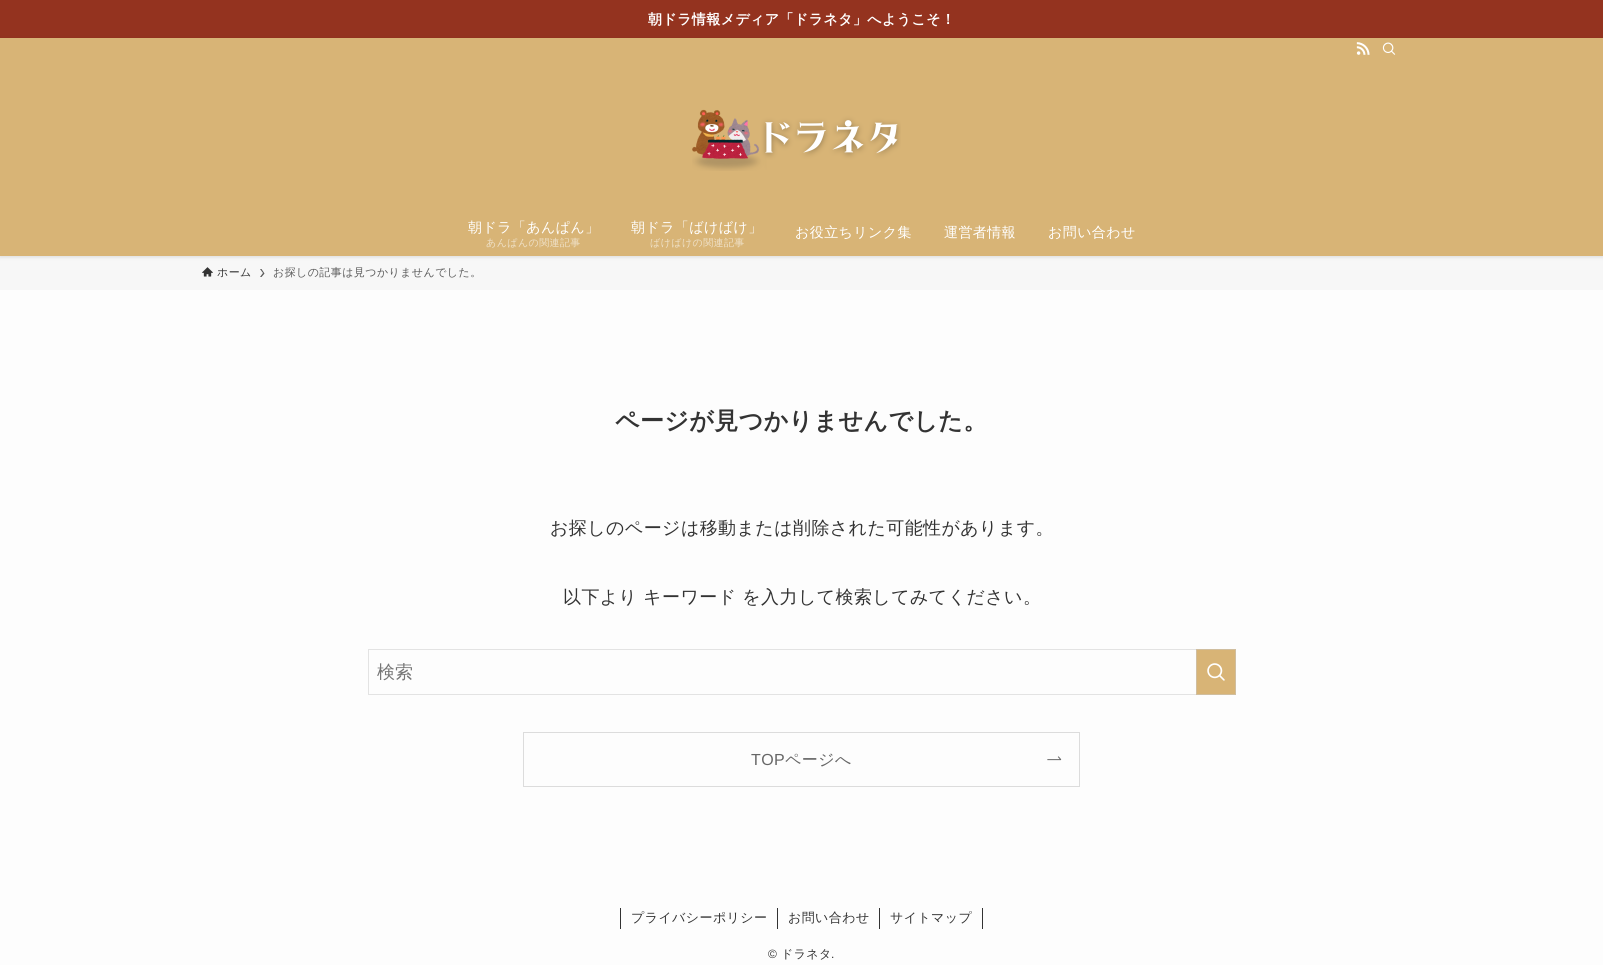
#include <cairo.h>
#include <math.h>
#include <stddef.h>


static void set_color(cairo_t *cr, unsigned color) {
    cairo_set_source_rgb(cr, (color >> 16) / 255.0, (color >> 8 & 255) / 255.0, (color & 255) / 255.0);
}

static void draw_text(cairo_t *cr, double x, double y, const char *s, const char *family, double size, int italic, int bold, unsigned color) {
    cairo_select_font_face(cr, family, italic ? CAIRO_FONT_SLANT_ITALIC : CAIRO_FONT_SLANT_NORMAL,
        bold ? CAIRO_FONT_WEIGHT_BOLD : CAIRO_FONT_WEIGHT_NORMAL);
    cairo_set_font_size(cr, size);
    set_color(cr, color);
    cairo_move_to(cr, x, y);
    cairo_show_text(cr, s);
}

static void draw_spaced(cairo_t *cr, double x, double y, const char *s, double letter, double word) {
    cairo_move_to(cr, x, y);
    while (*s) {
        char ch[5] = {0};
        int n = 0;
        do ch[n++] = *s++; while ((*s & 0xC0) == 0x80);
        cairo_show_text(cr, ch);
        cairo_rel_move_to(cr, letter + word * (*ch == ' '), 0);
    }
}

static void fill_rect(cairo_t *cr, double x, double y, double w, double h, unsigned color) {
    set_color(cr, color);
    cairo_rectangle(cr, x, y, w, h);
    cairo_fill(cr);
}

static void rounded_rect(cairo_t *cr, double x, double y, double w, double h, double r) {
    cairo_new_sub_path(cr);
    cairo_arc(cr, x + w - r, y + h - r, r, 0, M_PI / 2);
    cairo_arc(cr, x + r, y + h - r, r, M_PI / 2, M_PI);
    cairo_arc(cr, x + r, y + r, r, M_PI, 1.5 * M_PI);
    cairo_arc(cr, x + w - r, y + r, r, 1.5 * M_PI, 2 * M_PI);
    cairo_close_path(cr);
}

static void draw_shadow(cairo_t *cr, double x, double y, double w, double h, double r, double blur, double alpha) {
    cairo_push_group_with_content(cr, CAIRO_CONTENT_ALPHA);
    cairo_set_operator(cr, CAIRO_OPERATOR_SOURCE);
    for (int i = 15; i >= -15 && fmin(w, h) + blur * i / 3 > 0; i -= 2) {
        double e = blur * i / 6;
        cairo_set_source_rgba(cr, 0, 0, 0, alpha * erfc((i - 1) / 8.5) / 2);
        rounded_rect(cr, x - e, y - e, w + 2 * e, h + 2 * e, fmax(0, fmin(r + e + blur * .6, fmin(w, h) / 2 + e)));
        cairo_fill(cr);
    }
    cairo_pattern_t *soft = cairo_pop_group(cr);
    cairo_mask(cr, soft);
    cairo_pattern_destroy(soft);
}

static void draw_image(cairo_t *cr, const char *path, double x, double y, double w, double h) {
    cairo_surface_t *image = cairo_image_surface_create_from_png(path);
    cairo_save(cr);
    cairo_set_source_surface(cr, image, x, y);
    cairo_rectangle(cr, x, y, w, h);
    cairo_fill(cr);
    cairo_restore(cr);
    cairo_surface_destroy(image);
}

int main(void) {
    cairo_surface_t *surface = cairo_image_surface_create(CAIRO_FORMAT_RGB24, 1603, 965);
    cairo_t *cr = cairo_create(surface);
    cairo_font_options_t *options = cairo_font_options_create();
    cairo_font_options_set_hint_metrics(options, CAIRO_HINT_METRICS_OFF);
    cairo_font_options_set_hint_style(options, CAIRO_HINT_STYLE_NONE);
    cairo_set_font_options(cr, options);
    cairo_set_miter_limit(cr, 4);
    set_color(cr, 0xFDFDFD);
    cairo_paint(cr);
    fill_rect(cr, 0, 0, 1603, 38, 0x94331F);
    cairo_select_font_face(cr, "WenQuanYi Zen Hei", CAIRO_FONT_SLANT_NORMAL, CAIRO_FONT_WEIGHT_BOLD);
    cairo_set_font_size(cr, 14);
    set_color(cr, 0xFFFFFF);
    draw_spaced(cr, 648, 24, "朝ドラ情報メディア「ドラネタ」へようこそ！", 0.4, 0);
    fill_rect(cr, 0, 256, 1603, 34, 0xF7F7F7);
    set_color(cr, 0x000000);
    draw_shadow(cr, 0, 39, 1603, 218, 0, 2, 0.12);
    fill_rect(cr, 0, 38, 1603, 218, 0xD8B476);
    draw_image(cr, "assets/img1.png", 1356, 42, 14, 13);
    draw_image(cr, "assets/img2.png", 1382, 42, 14, 13);
    draw_image(cr, "assets/img3.png", 692, 109, 209, 62);
    cairo_select_font_face(cr, "WenQuanYi Zen Hei Medium", CAIRO_FONT_SLANT_NORMAL, CAIRO_FONT_WEIGHT_NORMAL);
    set_color(cr, 0xFFFFFF);
    draw_spaced(cr, 468, 232, "朝ドラ「あんぱん」", 0.4, 0);
    cairo_set_font_size(cr, 10);
    set_color(cr, 0xEFE1C8);
    draw_spaced(cr, 486, 246, "あんぱんの関連記事", 0.4, 0);
    cairo_set_font_size(cr, 14);
    set_color(cr, 0xFFFFFF);
    draw_spaced(cr, 631, 232, "朝ドラ「ばけばけ」", 0.4, 0);
    cairo_set_font_size(cr, 10);
    set_color(cr, 0xEFE1C8);
    draw_spaced(cr, 650, 246, "ばけばけの関連記事", 0.4, 0);
    cairo_set_font_size(cr, 14);
    set_color(cr, 0xFFFFFF);
    draw_spaced(cr, 795, 237, "お役立ちリンク集", 0.4, 0);
    draw_spaced(cr, 944, 237, "運営者情報", 0.4, 0);
    draw_spaced(cr, 1048, 237, "お問い合わせ", 0.4, 0);
    draw_image(cr, "assets/img4.png", 202, 267, 11, 10);
    cairo_set_font_size(cr, 11);
    set_color(cr, 0x333333);
    draw_spaced(cr, 217, 276, "ホーム", 0.4, 0);
    set_color(cr, 0x5A5A5A);
    cairo_new_path(cr);
    cairo_move_to(cr, 261.5, 269);
    cairo_line_to(cr, 260, 269);
    cairo_line_to(cr, 263, 273);
    cairo_line_to(cr, 260, 277);
    cairo_line_to(cr, 261.5, 277);
    cairo_line_to(cr, 264.5, 273.5);
    cairo_close_path(cr);
    cairo_fill(cr);
    draw_spaced(cr, 273, 276, "お探しの記事は見つかりませんでした。", 0.4, 0);
    cairo_select_font_face(cr, "WenQuanYi Zen Hei", CAIRO_FONT_SLANT_NORMAL, CAIRO_FONT_WEIGHT_BOLD);
    cairo_set_font_size(cr, 24);
    set_color(cr, 0x333333);
    draw_spaced(cr, 615, 429, "ページが見つかりませんでした。", 0.4, 0);
    cairo_select_font_face(cr, "WenQuanYi Zen Hei Medium", CAIRO_FONT_SLANT_NORMAL, CAIRO_FONT_WEIGHT_NORMAL);
    cairo_set_font_size(cr, 18);
    draw_spaced(cr, 550, 534, "お探しのページは移動または削除された可能性があります。", 0.4, 0);
    draw_spaced(cr, 563, 603, "以下より キーワード を入力して検索してみてください。", 0.4, 0);
    cairo_rectangle(cr, 368.5, 649.5, 867, 45);
    set_color(cr, 0xE3E3E3);
    cairo_set_line_width(cr, 1);
    cairo_stroke(cr);
    draw_text(cr, 377, 678, "検索", "WenQuanYi Zen Hei Medium", 18, 0, 0, 0x757575);
    set_color(cr, 0xD8B476);
    cairo_rectangle(cr, 1196.5, 649.5, 39, 45);
    cairo_fill_preserve(cr);
    set_color(cr, 0xD0BE9F);
    cairo_stroke(cr);
    draw_image(cr, "assets/img5.png", 1207, 663, 18, 18);
    cairo_rectangle(cr, 523.5, 732.5, 556, 54);
    set_color(cr, 0xDCDCDC);
    cairo_stroke(cr);
    cairo_select_font_face(cr, "Liberation Sans", CAIRO_FONT_SLANT_NORMAL, CAIRO_FONT_WEIGHT_NORMAL);
    cairo_set_font_size(cr, 16);
    set_color(cr, 0x666666);
    draw_spaced(cr, 751, 765, "TOP", 0.4, 0);
    cairo_select_font_face(cr, "WenQuanYi Zen Hei Medium", CAIRO_FONT_SLANT_NORMAL, CAIRO_FONT_WEIGHT_NORMAL);
    draw_spaced(cr, 785, 765, "ページへ", 0.4, 0);
    draw_image(cr, "assets/img6.png", 1047, 756, 15, 5);
    fill_rect(cr, 777, 908, 1, 21, 0x333333);
    fill_rect(cr, 620, 908, 1, 21, 0x333333);
    cairo_set_font_size(cr, 13);
    draw_spaced(cr, 631, 922, "プライバシーポリシー", 0.4, 0);
    fill_rect(cr, 879, 908, 1, 21, 0x333333);
    draw_spaced(cr, 788, 922, "お問い合わせ", 0.4, 0);
    fill_rect(cr, 982, 908, 1, 21, 0x333333);
    draw_spaced(cr, 890, 922, "サイトマップ", 0.4, 0);
    cairo_select_font_face(cr, "Liberation Sans", CAIRO_FONT_SLANT_NORMAL, CAIRO_FONT_WEIGHT_NORMAL);
    cairo_set_font_size(cr, 12);
    draw_spaced(cr, 768, 958, "©", 0.4, 0);
    cairo_select_font_face(cr, "WenQuanYi Zen Hei Medium", CAIRO_FONT_SLANT_NORMAL, CAIRO_FONT_WEIGHT_NORMAL);
    draw_spaced(cr, 781, 958, "ドラネタ", 0.4, 0);
    cairo_select_font_face(cr, "Liberation Sans", CAIRO_FONT_SLANT_NORMAL, CAIRO_FONT_WEIGHT_NORMAL);
    draw_spaced(cr, 831, 958, ".", 0.4, 0);
    cairo_surface_write_to_png(surface, "output.png");
    cairo_font_options_destroy(options);
    cairo_destroy(cr);
    cairo_surface_destroy(surface);
    return 0;
}
